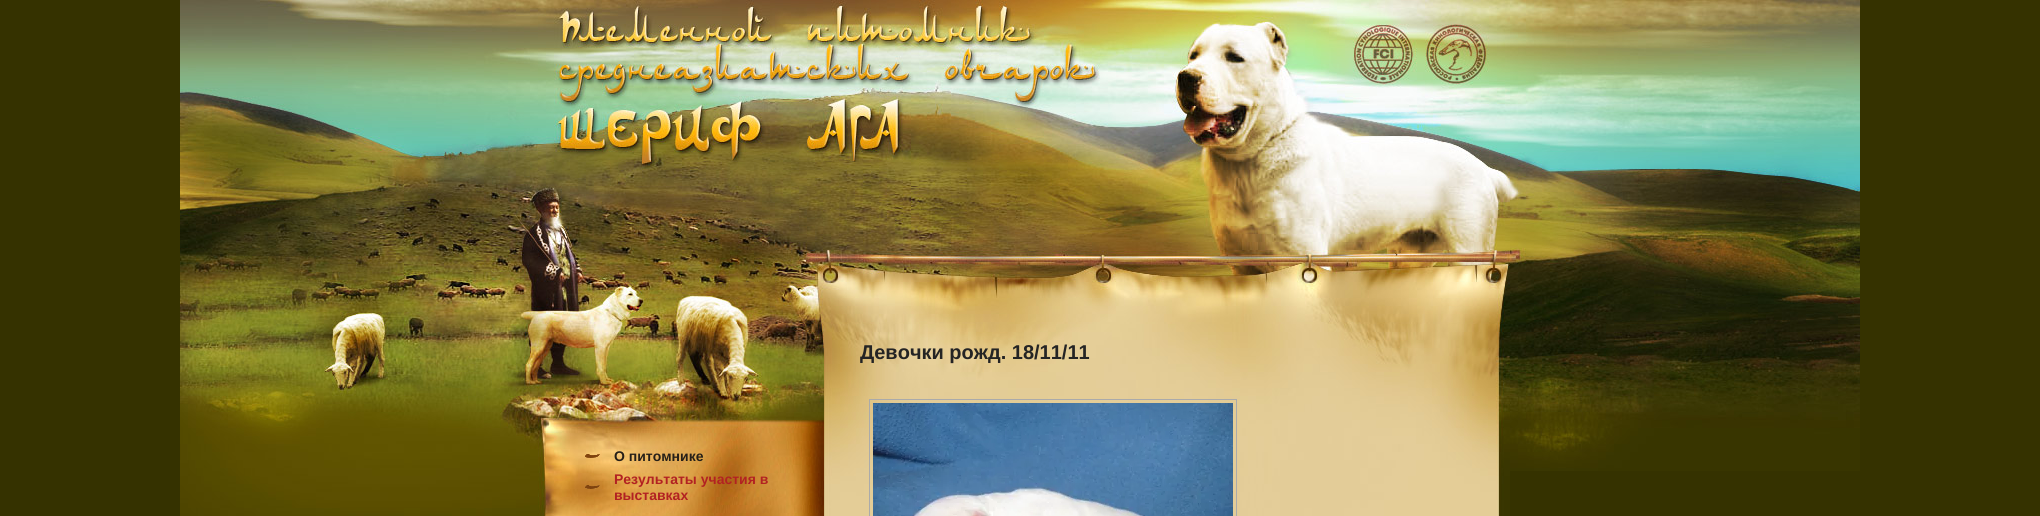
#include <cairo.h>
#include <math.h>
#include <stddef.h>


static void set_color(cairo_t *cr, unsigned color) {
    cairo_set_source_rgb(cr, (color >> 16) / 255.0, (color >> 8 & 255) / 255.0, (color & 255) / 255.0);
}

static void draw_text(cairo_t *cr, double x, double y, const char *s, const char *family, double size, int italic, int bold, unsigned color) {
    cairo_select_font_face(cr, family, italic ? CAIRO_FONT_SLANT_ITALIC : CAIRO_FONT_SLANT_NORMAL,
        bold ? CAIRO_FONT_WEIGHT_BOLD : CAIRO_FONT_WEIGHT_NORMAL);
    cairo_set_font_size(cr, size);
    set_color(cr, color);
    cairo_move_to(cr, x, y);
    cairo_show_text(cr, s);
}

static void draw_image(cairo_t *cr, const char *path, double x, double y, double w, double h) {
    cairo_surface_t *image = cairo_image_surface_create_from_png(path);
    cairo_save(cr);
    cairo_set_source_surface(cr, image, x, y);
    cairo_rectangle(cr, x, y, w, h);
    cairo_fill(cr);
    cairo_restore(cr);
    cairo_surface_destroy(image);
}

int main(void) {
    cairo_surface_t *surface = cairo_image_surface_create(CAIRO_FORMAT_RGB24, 2040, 516);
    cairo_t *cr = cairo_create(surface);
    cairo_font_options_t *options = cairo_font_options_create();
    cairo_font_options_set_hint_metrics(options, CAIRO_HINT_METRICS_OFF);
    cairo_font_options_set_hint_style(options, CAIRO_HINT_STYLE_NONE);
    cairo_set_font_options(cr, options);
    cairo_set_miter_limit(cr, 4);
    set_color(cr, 0x353200);
    cairo_paint(cr);
    draw_image(cr, "assets/img1.png", 180, 0, 350, 324);
    draw_image(cr, "assets/img2.png", 180, 324, 350, 192);
    draw_image(cr, "assets/img3.png", 530, 0, 245, 162);
    draw_image(cr, "assets/img4.png", 775, 0, 245, 162);
    draw_image(cr, "assets/img5.png", 1020, 0, 245, 162);
    draw_image(cr, "assets/img6.png", 1265, 0, 245, 162);
    draw_image(cr, "assets/img7.png", 530, 162, 245, 162);
    draw_image(cr, "assets/img8.png", 775, 162, 245, 162);
    draw_image(cr, "assets/img9.png", 1020, 162, 245, 162);
    draw_image(cr, "assets/img10.png", 1265, 162, 245, 162);
    draw_image(cr, "assets/img11.png", 824, 324, 686, 192);
    draw_text(cr, 860, 359, "Девочки рожд. 18/11/11", "Liberation Sans", 20, 0, 1, 0x242424);
    cairo_rectangle(cr, 869.5, 399.5, 367, 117);
    set_color(cr, 0xAAAAAA);
    cairo_set_line_width(cr, 1);
    cairo_stroke(cr);
    draw_image(cr, "assets/img12.png", 873, 403, 360, 113);
    draw_image(cr, "assets/img13.png", 530, 324, 294, 109);
    draw_image(cr, "assets/img14.png", 530, 433, 8, 83);
    draw_image(cr, "assets/img15.png", 538, 433, 286, 83);
    draw_image(cr, "assets/img16.png", 585, 454, 15, 4);
    draw_text(cr, 614, 461, "О питомнике", "Liberation Sans", 14, 0, 1, 0x261F18);
    draw_image(cr, "assets/img17.png", 585, 485, 15, 4);
    draw_text(cr, 614, 484, "Результаты участия в", "Liberation Sans", 14, 0, 1, 0xB22222);
    draw_text(cr, 614, 500, "выставках", "Liberation Sans", 14, 0, 1, 0xB22222);
    draw_image(cr, "assets/img18.png", 1510, 0, 350, 324);
    draw_image(cr, "assets/img19.png", 1510, 324, 350, 147);
    cairo_surface_write_to_png(surface, "output.png");
    cairo_font_options_destroy(options);
    cairo_destroy(cr);
    cairo_surface_destroy(surface);
    return 0;
}
